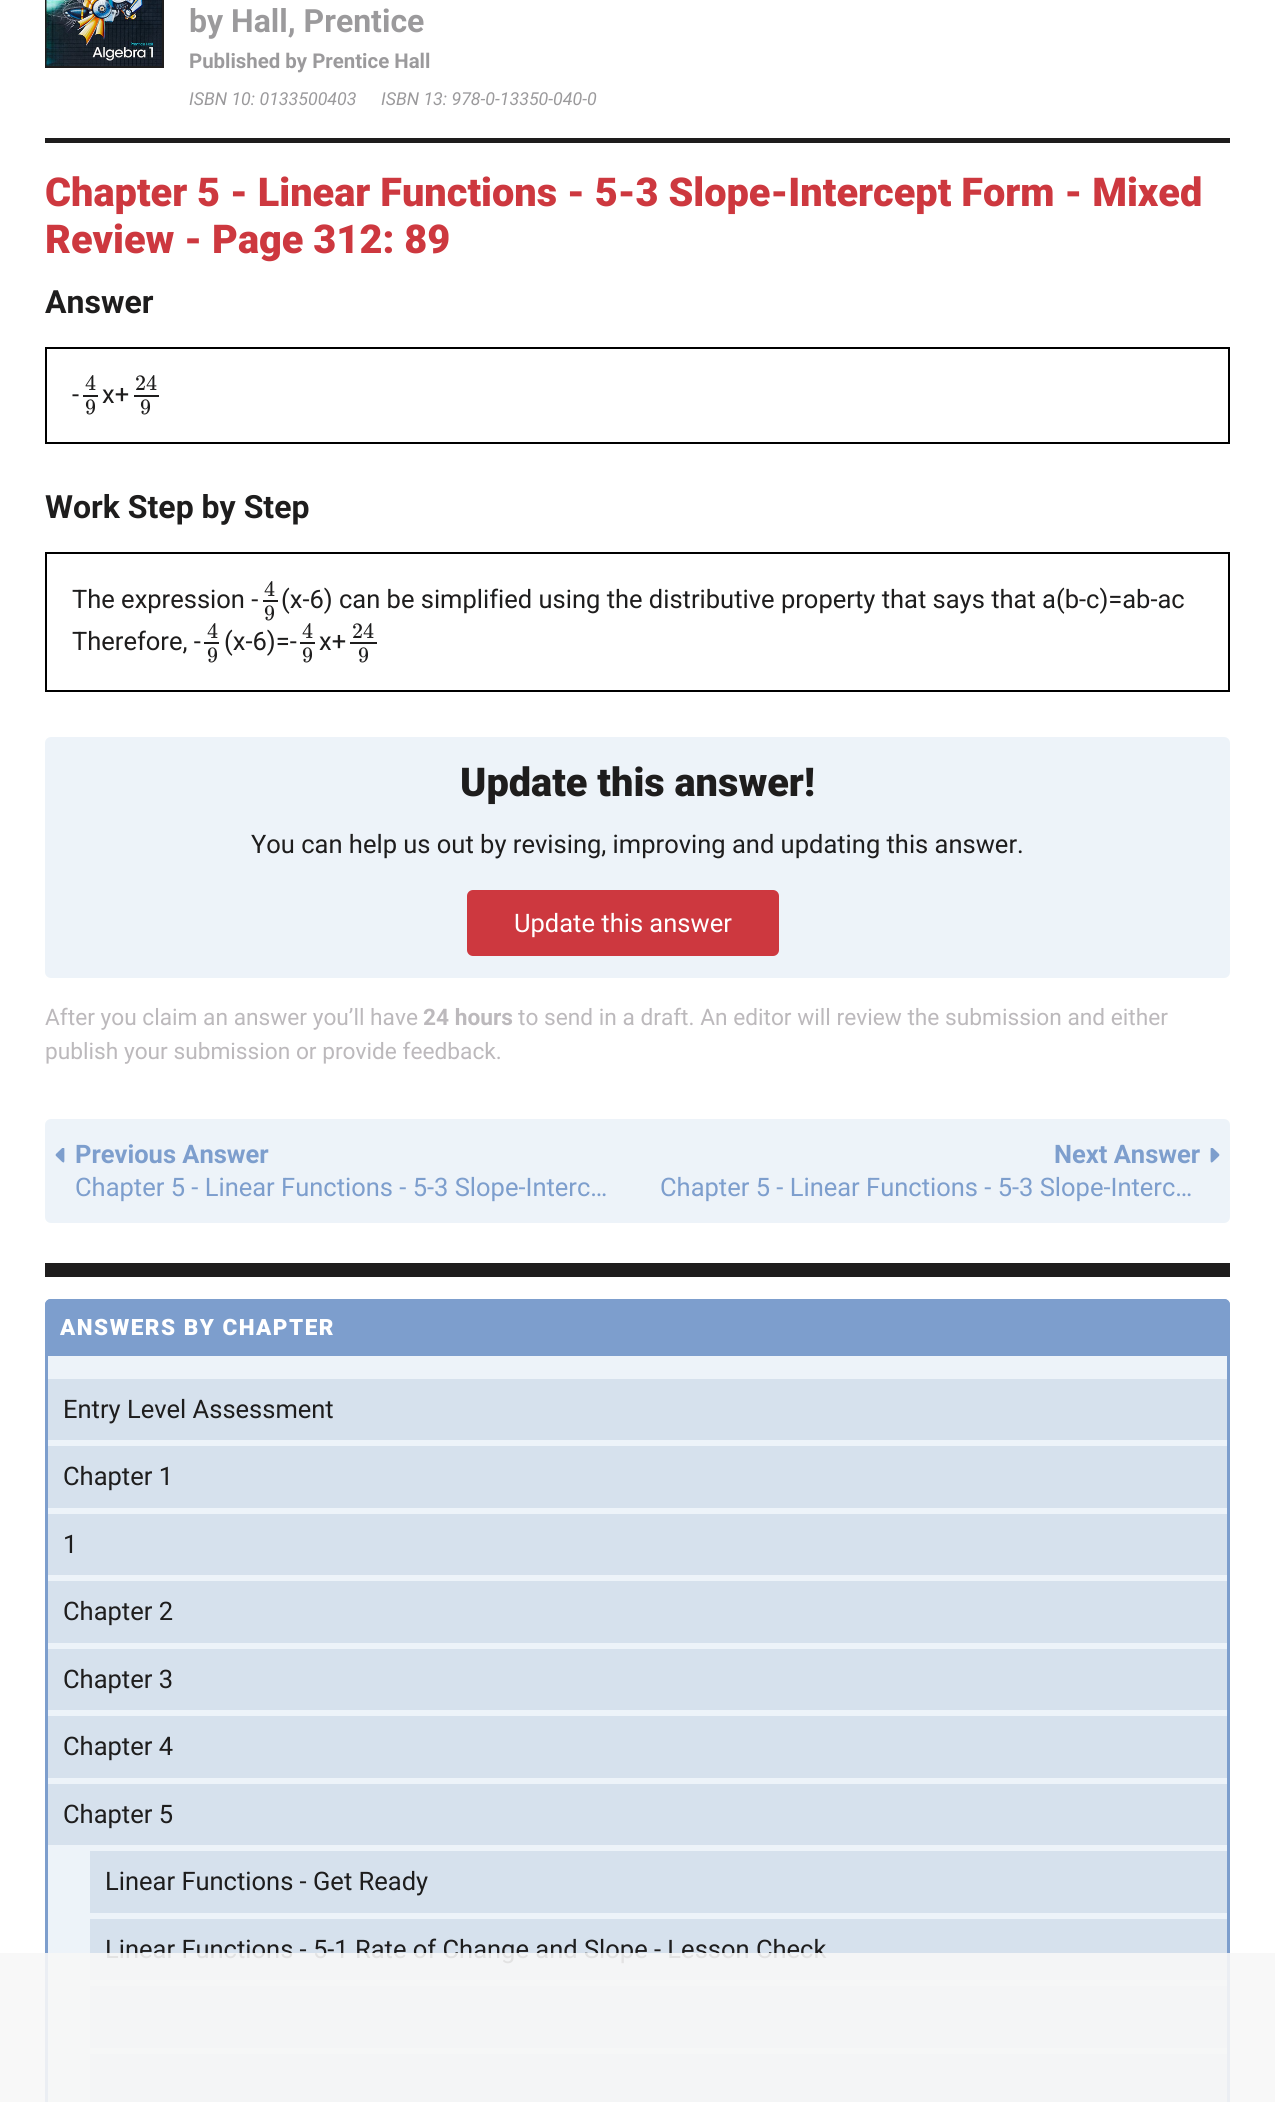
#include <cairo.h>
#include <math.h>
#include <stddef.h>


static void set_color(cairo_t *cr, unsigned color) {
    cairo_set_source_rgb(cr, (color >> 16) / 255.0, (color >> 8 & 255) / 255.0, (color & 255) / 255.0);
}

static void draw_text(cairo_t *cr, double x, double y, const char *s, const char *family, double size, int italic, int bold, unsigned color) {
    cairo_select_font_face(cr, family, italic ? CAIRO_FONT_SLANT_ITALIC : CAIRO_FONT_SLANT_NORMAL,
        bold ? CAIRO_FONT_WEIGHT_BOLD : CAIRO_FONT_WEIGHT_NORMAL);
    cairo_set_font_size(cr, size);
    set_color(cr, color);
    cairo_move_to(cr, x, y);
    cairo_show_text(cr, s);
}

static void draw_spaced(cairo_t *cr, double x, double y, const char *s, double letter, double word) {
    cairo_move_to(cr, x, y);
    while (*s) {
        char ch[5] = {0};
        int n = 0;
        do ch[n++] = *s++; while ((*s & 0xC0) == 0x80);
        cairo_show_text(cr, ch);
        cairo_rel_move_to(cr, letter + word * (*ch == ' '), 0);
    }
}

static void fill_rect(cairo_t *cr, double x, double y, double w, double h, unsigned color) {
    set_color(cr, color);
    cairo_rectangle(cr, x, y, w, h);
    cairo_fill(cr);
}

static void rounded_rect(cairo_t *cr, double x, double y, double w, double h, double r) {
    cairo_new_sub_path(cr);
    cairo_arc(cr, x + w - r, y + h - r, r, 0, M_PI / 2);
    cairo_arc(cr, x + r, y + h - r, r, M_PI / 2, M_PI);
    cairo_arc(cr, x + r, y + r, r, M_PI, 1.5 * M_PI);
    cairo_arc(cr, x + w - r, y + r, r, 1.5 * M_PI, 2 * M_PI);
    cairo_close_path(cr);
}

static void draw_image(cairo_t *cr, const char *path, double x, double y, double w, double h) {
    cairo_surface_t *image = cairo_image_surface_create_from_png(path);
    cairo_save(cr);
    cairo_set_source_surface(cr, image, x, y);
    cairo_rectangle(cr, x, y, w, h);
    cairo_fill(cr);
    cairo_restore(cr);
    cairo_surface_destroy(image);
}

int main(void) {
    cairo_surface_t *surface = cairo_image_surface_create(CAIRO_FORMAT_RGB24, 1275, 2102);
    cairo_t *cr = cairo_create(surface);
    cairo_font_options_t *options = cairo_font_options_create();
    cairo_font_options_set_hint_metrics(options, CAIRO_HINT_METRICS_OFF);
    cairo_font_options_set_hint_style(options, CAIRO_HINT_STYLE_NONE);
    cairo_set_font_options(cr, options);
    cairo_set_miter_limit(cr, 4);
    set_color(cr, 0xFFFFFF);
    cairo_paint(cr);
    fill_rect(cr, 45, 138, 1185, 5, 0x1E1D1D);
    cairo_rectangle(cr, 46, -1, 117, 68);
    cairo_stroke(cr);
    draw_image(cr, "assets/img1.png", 46, 0, 116, 66);
    draw_text(cr, 189, 32, "by Hall, Prentice", "Roboto", 32, 0, 1, 0x9B9A9C);
    draw_text(cr, 189, 68, "Published by Prentice Hall", "Roboto", 20.4, 0, 1, 0x9B9A9C);
    draw_text(cr, 189, 105, "ISBN 10: 0133500403", "Roboto", 17.8, 1, 0, 0x9B9A9C);
    draw_text(cr, 381, 105, "ISBN 13: 978-0-13350-040-0", "Roboto", 17.8, 1, 0, 0x9B9A9C);
    draw_text(cr, 45, 206, "Chapter 5 - Linear Functions - 5-3 Slope-Intercept Form - Mixed", "Roboto Black", 39.7, 0, 0, 0xCD383F);
    draw_text(cr, 45, 253, "Review - Page 312: 89", "Roboto Black", 39.7, 0, 0, 0xCD383F);
    draw_text(cr, 45, 313, "Answer", "Roboto", 32, 0, 1, 0x1E1D1D);
    cairo_rectangle(cr, 46, 348, 1183, 95);
    set_color(cr, 0x000000);
    cairo_stroke(cr);
    draw_text(cr, 72, 403, "-", "Roboto", 25.5, 0, 0, 0x1E1D1D);
    draw_text(cr, 85, 390, "4", "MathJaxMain", 22, 0, 0, 0x1E1D1D);
    fill_rect(cr, 83, 395, 15, 2, 0x1E1D1D);
    draw_text(cr, 85, 414, "9", "MathJaxMain", 22, 0, 0, 0x1E1D1D);
    draw_text(cr, 102, 403, "x+", "Roboto", 25.5, 0, 0, 0x1E1D1D);
    draw_text(cr, 135, 390, "24", "MathJaxMain", 22, 0, 0, 0x1E1D1D);
    fill_rect(cr, 134, 395, 25, 2, 0x1E1D1D);
    draw_text(cr, 140, 414, "9", "MathJaxMain", 22, 0, 0, 0x1E1D1D);
    draw_text(cr, 45, 518, "Work Step by Step", "Roboto", 32, 0, 1, 0x1E1D1D);
    cairo_rectangle(cr, 46, 553, 1183, 138);
    set_color(cr, 0x000000);
    cairo_stroke(cr);
    draw_text(cr, 72, 608, "The expression -", "Roboto", 25.5, 0, 0, 0x1E1D1D);
    draw_text(cr, 264, 596, "4", "MathJaxMain", 22, 0, 0, 0x1E1D1D);
    fill_rect(cr, 263, 600, 15, 2, 0x1E1D1D);
    draw_text(cr, 264, 620, "9", "MathJaxMain", 22, 0, 0, 0x1E1D1D);
    draw_text(cr, 281, 608, "(x-6) can be simplified using the distributive property that says that a(b-c)=ab-ac", "Roboto", 25.5, 0, 0, 0x1E1D1D);
    draw_text(cr, 72, 650, "Therefore, -", "Roboto", 25.5, 0, 0, 0x1E1D1D);
    draw_text(cr, 207, 638, "4", "MathJaxMain", 22, 0, 0, 0x1E1D1D);
    fill_rect(cr, 204, 642, 15, 2, 0x1E1D1D);
    draw_text(cr, 207, 662, "9", "MathJaxMain", 22, 0, 0, 0x1E1D1D);
    draw_text(cr, 224, 650, "(x-6)=-", "Roboto", 25.5, 0, 0, 0x1E1D1D);
    draw_text(cr, 302, 638, "4", "MathJaxMain", 22, 0, 0, 0x1E1D1D);
    fill_rect(cr, 300, 642, 15, 2, 0x1E1D1D);
    draw_text(cr, 302, 662, "9", "MathJaxMain", 22, 0, 0, 0x1E1D1D);
    draw_text(cr, 319, 650, "x+", "Roboto", 25.5, 0, 0, 0x1E1D1D);
    draw_text(cr, 352, 638, "24", "MathJaxMain", 22, 0, 0, 0x1E1D1D);
    fill_rect(cr, 350, 642, 27, 2, 0x1E1D1D);
    draw_text(cr, 358, 662, "9", "MathJaxMain", 22, 0, 0, 0x1E1D1D);
    set_color(cr, 0xEDF3F9);
    rounded_rect(cr, 45, 737, 1185, 241, 6);
    cairo_fill(cr);
    draw_text(cr, 460, 796, "Update this answer!", "Roboto Black", 39.7, 0, 0, 0x1E1D1D);
    draw_text(cr, 251, 853, "You can help us out by revising, improving and updating this answer.", "Roboto", 25.5, 0, 0, 0x1E1D1D);
    set_color(cr, 0xCD383F);
    rounded_rect(cr, 468, 891, 310, 64, 5);
    cairo_fill_preserve(cr);
    cairo_stroke(cr);
    draw_text(cr, 514, 932, "Update this answer", "Roboto", 25.5, 0, 0, 0xFFFFFF);
    draw_text(cr, 45, 1025, "After you claim an answer you’ll have", "Roboto", 22.7, 0, 0, 0xBCB9BC);
    draw_text(cr, 423, 1025, "24 hours", "Roboto", 22.7, 0, 1, 0xBCB9BC);
    draw_text(cr, 518, 1025, "to send in a draft. An editor will review the submission and either", "Roboto", 22.7, 0, 0, 0xBCB9BC);
    draw_text(cr, 45, 1059, "publish your submission or provide feedback.", "Roboto", 22.7, 0, 0, 0xBCB9BC);
    set_color(cr, 0xEDF3F9);
    rounded_rect(cr, 45, 1119, 1185, 104, 6);
    cairo_fill(cr);
    draw_image(cr, "assets/img2.png", 55, 1148, 10, 15);
    draw_text(cr, 75, 1163, "Previous Answer", "Roboto", 25.5, 0, 1, 0x7D9ECD);
    draw_text(cr, 75, 1196, "Chapter 5 - Linear Functions - 5-3 Slope-Interc…", "Roboto", 25.5, 0, 0, 0x7D9ECD);
    draw_text(cr, 1054, 1163, "Next Answer", "Roboto", 25.5, 0, 1, 0x7D9ECD);
    draw_image(cr, "assets/img3.png", 1210, 1148, 10, 15);
    draw_text(cr, 660, 1196, "Chapter 5 - Linear Functions - 5-3 Slope-Interc…", "Roboto", 25.5, 0, 0, 0x7D9ECD);
    fill_rect(cr, 45, 1263, 1185, 14, 0x1E1D1D);
    set_color(cr, 0xEDF3F9);
    rounded_rect(cr, 46.5, 1300.5, 1182, 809, 4.5);
    cairo_fill_preserve(cr);
    set_color(cr, 0x7D9ECD);
    cairo_set_line_width(cr, 3);
    cairo_stroke(cr);
    cairo_new_path(cr);
    cairo_move_to(cr, 51, 1299);
    cairo_line_to(cr, 1224, 1299);
    cairo_curve_to(cr, 1227.5, 1299, 1230, 1301.5, 1230, 1305);
    cairo_line_to(cr, 1230, 1356);
    cairo_line_to(cr, 45, 1356);
    cairo_line_to(cr, 45, 1305);
    cairo_curve_to(cr, 45, 1301.5, 47.5, 1299, 51, 1299);
    cairo_close_path(cr);
    cairo_fill(cr);
    cairo_select_font_face(cr, "Roboto Black", CAIRO_FONT_SLANT_NORMAL, CAIRO_FONT_WEIGHT_NORMAL);
    cairo_set_font_size(cr, 22.5);
    set_color(cr, 0xFFFFFF);
    draw_spaced(cr, 60, 1335, "ANSWERS BY CHAPTER", 1.5, 0);
    fill_rect(cr, 48, 1379, 1179, 61, 0xD6E1ED);
    draw_text(cr, 63, 1418, "Entry Level Assessment", "Roboto", 25.5, 0, 0, 0x1E1D1D);
    fill_rect(cr, 48, 1446, 1179, 62, 0xD6E1ED);
    draw_text(cr, 63, 1485, "Chapter 1", "Roboto", 25.5, 0, 0, 0x1E1D1D);
    fill_rect(cr, 48, 1514, 1179, 61, 0xD6E1ED);
    draw_text(cr, 63, 1553, "1", "Roboto", 25.5, 0, 0, 0x1E1D1D);
    fill_rect(cr, 48, 1581, 1179, 62, 0xD6E1ED);
    draw_text(cr, 63, 1620, "Chapter 2", "Roboto", 25.5, 0, 0, 0x1E1D1D);
    fill_rect(cr, 48, 1649, 1179, 61, 0xD6E1ED);
    draw_text(cr, 63, 1688, "Chapter 3", "Roboto", 25.5, 0, 0, 0x1E1D1D);
    fill_rect(cr, 48, 1716, 1179, 62, 0xD6E1ED);
    draw_text(cr, 63, 1755, "Chapter 4", "Roboto", 25.5, 0, 0, 0x1E1D1D);
    fill_rect(cr, 48, 1784, 1179, 61, 0xD6E1ED);
    draw_text(cr, 63, 1823, "Chapter 5", "Roboto", 25.5, 0, 0, 0x1E1D1D);
    fill_rect(cr, 90, 1851, 1137, 62, 0xD6E1ED);
    draw_text(cr, 105, 1890, "Linear Functions - Get Ready", "Roboto", 25.5, 0, 0, 0x1E1D1D);
    fill_rect(cr, 90, 1919, 1137, 61, 0xD6E1ED);
    draw_text(cr, 105, 1958, "Linear Functions - 5-1 Rate of Change and Slope - Lesson Check", "Roboto", 25.5, 0, 0, 0x1E1D1D);
    fill_rect(cr, 90, 1986, 1137, 62, 0xD6E1ED);
    fill_rect(cr, 90, 2054, 1137, 48, 0xD6E1ED);
    cairo_set_source_rgba(cr, 0.969, 0.969, 0.969, 0.9);
    cairo_rectangle(cr, 0, 1953, 1275, 149);
    cairo_fill(cr);
    cairo_surface_write_to_png(surface, "output.png");
    cairo_font_options_destroy(options);
    cairo_destroy(cr);
    cairo_surface_destroy(surface);
    return 0;
}
